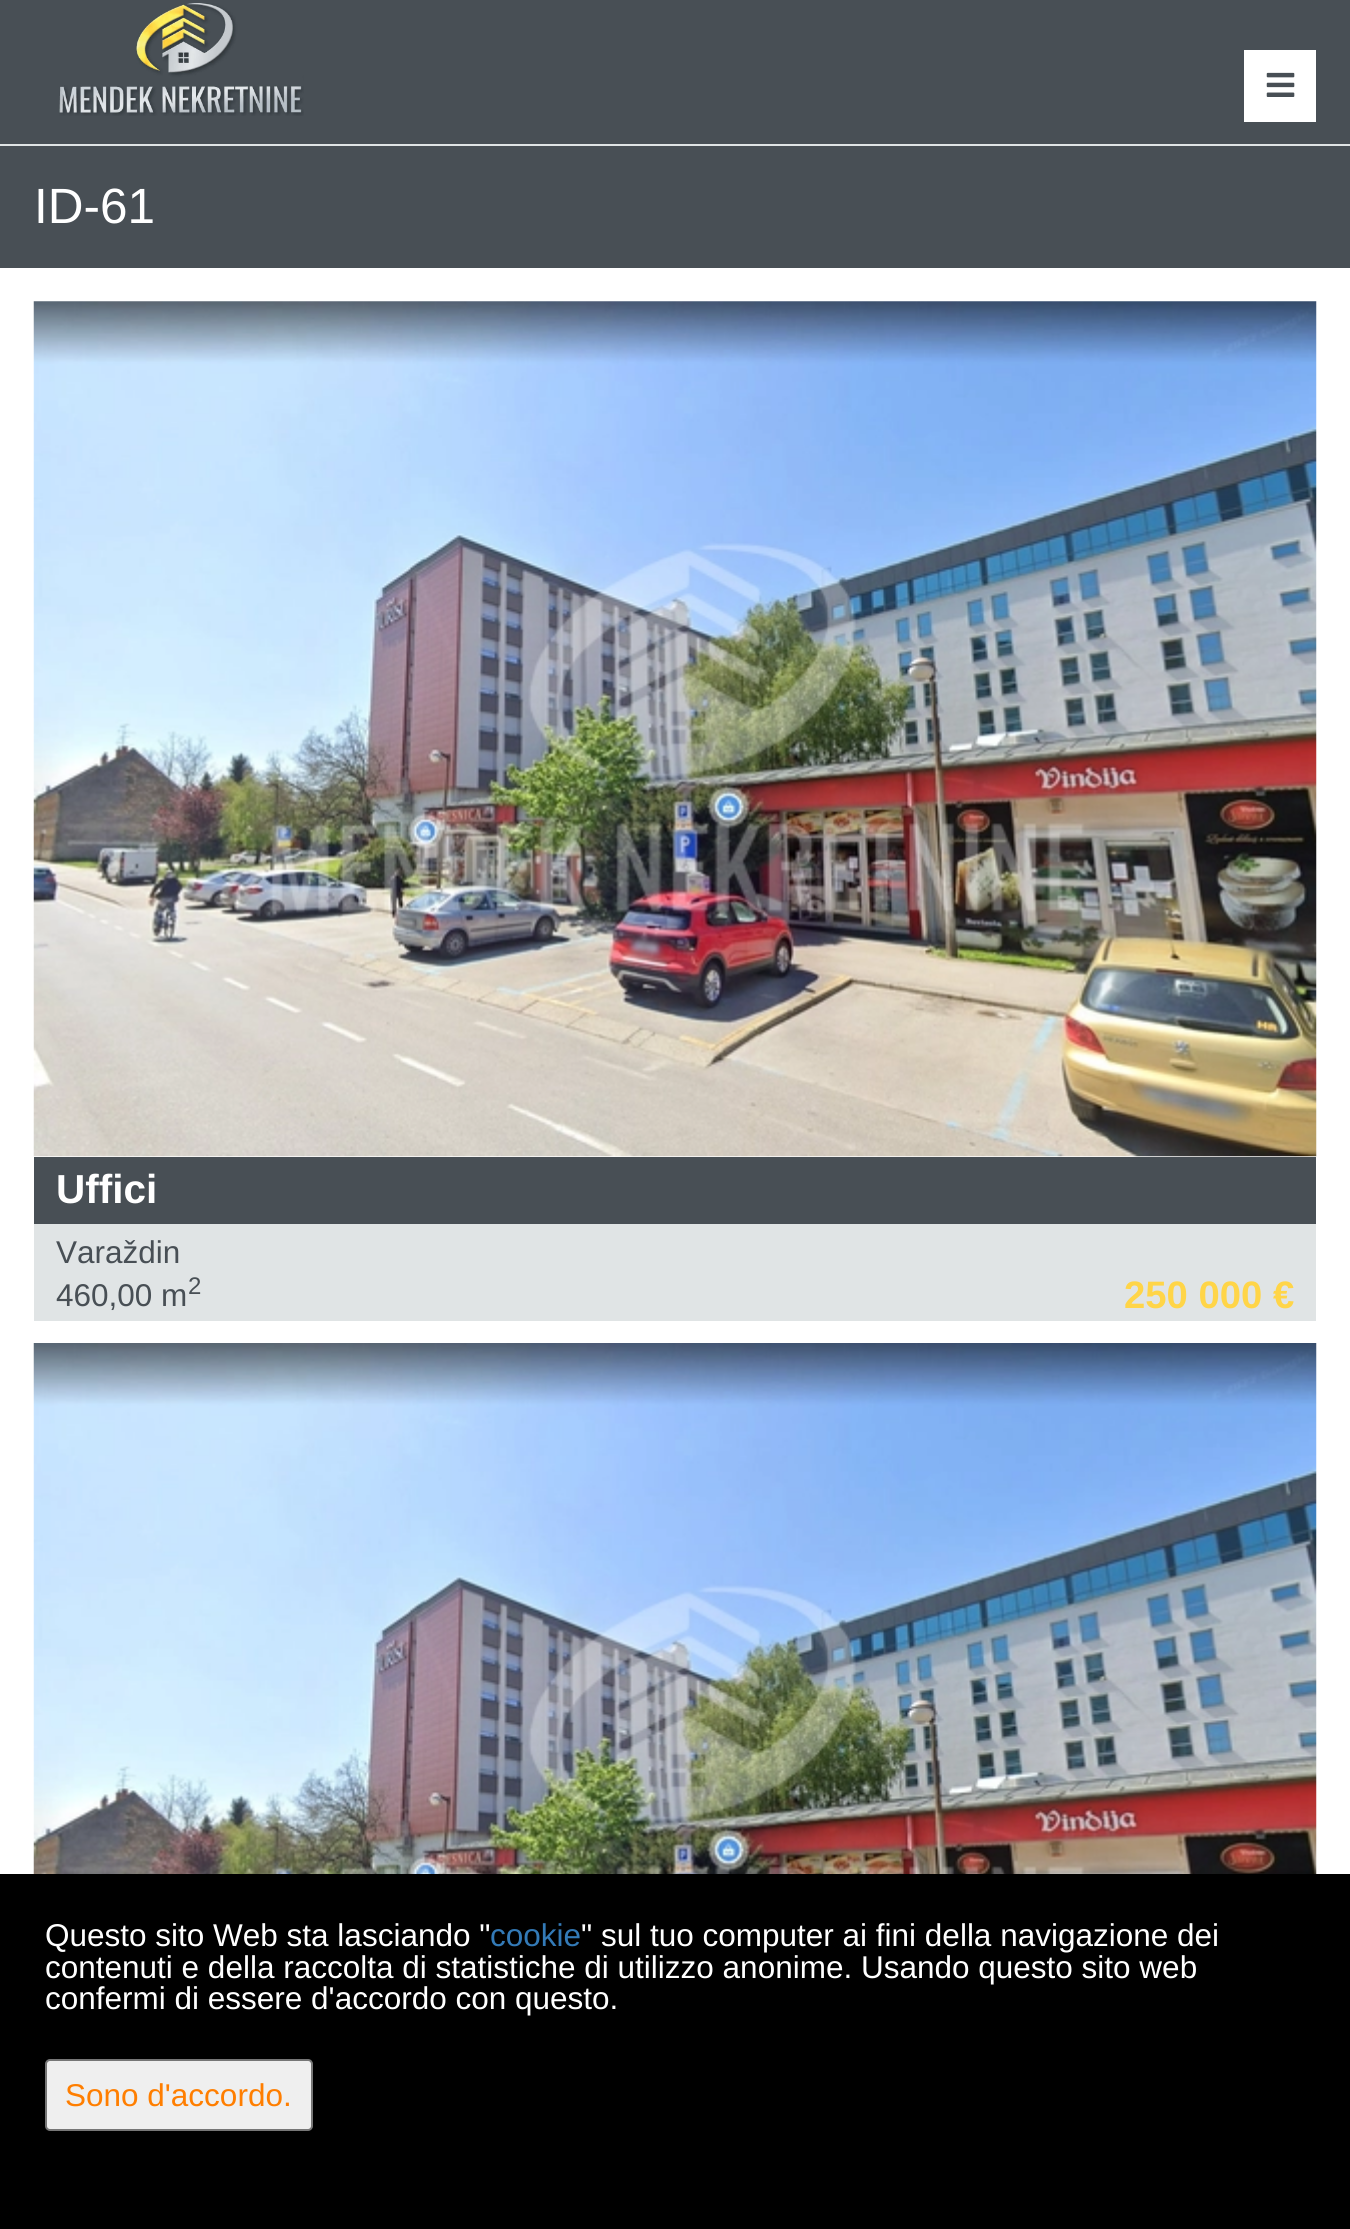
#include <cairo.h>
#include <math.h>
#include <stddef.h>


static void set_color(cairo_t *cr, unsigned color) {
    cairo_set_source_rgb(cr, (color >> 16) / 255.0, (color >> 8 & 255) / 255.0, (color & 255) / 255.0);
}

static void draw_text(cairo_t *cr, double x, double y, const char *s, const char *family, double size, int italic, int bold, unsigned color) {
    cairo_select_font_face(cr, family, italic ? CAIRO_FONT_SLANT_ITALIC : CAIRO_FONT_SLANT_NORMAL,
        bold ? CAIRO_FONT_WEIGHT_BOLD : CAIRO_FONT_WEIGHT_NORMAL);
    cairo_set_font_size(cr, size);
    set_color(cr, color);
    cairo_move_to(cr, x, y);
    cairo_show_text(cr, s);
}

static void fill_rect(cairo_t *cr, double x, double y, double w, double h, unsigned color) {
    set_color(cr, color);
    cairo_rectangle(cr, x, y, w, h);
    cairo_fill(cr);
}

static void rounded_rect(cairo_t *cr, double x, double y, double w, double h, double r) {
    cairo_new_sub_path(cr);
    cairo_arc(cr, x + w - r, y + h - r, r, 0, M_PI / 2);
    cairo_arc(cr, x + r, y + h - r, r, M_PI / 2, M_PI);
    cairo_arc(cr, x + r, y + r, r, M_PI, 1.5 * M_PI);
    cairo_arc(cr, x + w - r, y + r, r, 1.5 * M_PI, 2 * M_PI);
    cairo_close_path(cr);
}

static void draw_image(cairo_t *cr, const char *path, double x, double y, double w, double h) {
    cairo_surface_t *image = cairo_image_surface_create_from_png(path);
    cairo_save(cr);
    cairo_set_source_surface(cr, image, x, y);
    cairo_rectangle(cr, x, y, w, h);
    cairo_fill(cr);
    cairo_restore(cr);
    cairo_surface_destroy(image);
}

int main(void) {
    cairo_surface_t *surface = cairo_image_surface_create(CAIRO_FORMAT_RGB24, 1350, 2229);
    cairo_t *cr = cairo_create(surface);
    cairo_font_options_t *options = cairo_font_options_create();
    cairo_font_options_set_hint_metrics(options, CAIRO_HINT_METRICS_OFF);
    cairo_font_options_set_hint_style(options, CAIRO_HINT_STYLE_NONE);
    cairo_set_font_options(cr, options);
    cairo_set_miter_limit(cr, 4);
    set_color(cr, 0xFFFFFF);
    cairo_paint(cr);
    fill_rect(cr, 0, 0, 1350, 144, 0x484F55);
    draw_image(cr, "assets/img1.png", 59, 3, 245, 113);
    fill_rect(cr, 1244, 50, 72, 72, 0xFFFFFF);
    draw_image(cr, "assets/img2.png", 1266, 72, 29, 25);
    fill_rect(cr, 0, 146, 1350, 122, 0x484F55);
    fill_rect(cr, 0, 144, 1350, 2, 0xE0E4E5);
    draw_text(cr, 34, 223, "ID-61", "Liberation Sans", 49.5, 0, 0, 0xFFFFFF);
    draw_image(cr, "assets/img3.png", 33, 301, 1284, 856);
    fill_rect(cr, 34, 1224, 1282, 97, 0xE0E4E5);
    fill_rect(cr, 34, 1157, 1282, 67, 0x484F55);
    draw_text(cr, 56, 1203, "Uffici", "Liberation Sans", 40.5, 0, 1, 0xFFFFFF);
    draw_text(cr, 56, 1263, "Varaždin", "Liberation Sans", 31.5, 0, 0, 0x484F55);
    draw_text(cr, 56, 1306, "460,00 m", "Liberation Sans", 31.5, 0, 0, 0x484F55);
    draw_text(cr, 188, 1294, "2", "Liberation Sans", 24, 0, 0, 0x484F55);
    draw_text(cr, 1124, 1308, "250 000 €", "Liberation Sans", 38.25, 0, 1, 0xFFD548);
    draw_image(cr, "assets/img4.png", 33, 1343, 1284, 531);
    fill_rect(cr, 0, 1874, 1350, 355, 0x000000);
    draw_text(cr, 45, 1946, "Questo sito Web sta lasciando \"", "Liberation Sans", 31.5, 0, 0, 0xFFFFFF);
    draw_text(cr, 490, 1946, "cookie", "Liberation Sans", 31.5, 0, 0, 0x337AB7);
    draw_text(cr, 581, 1946, "\" sul tuo computer ai fini della navigazione dei", "Liberation Sans", 31.5, 0, 0, 0xFFFFFF);
    draw_text(cr, 45, 1978, "contenuti e della raccolta di statistiche di utilizzo anonime. Usando questo sito web", "Liberation Sans", 31.5, 0, 0, 0xFFFFFF);
    draw_text(cr, 45, 2009, "confermi di essere d'accordo con questo.", "Liberation Sans", 31.5, 0, 0, 0xFFFFFF);
    set_color(cr, 0xEFEFEF);
    rounded_rect(cr, 46, 2060, 266, 70, 4);
    cairo_fill_preserve(cr);
    set_color(cr, 0x767676);
    cairo_stroke(cr);
    draw_text(cr, 65, 2106, "Sono d'accordo.", "Liberation Sans", 31.5, 0, 0, 0xFF7E00);
    cairo_surface_write_to_png(surface, "output.png");
    cairo_font_options_destroy(options);
    cairo_destroy(cr);
    cairo_surface_destroy(surface);
    return 0;
}
